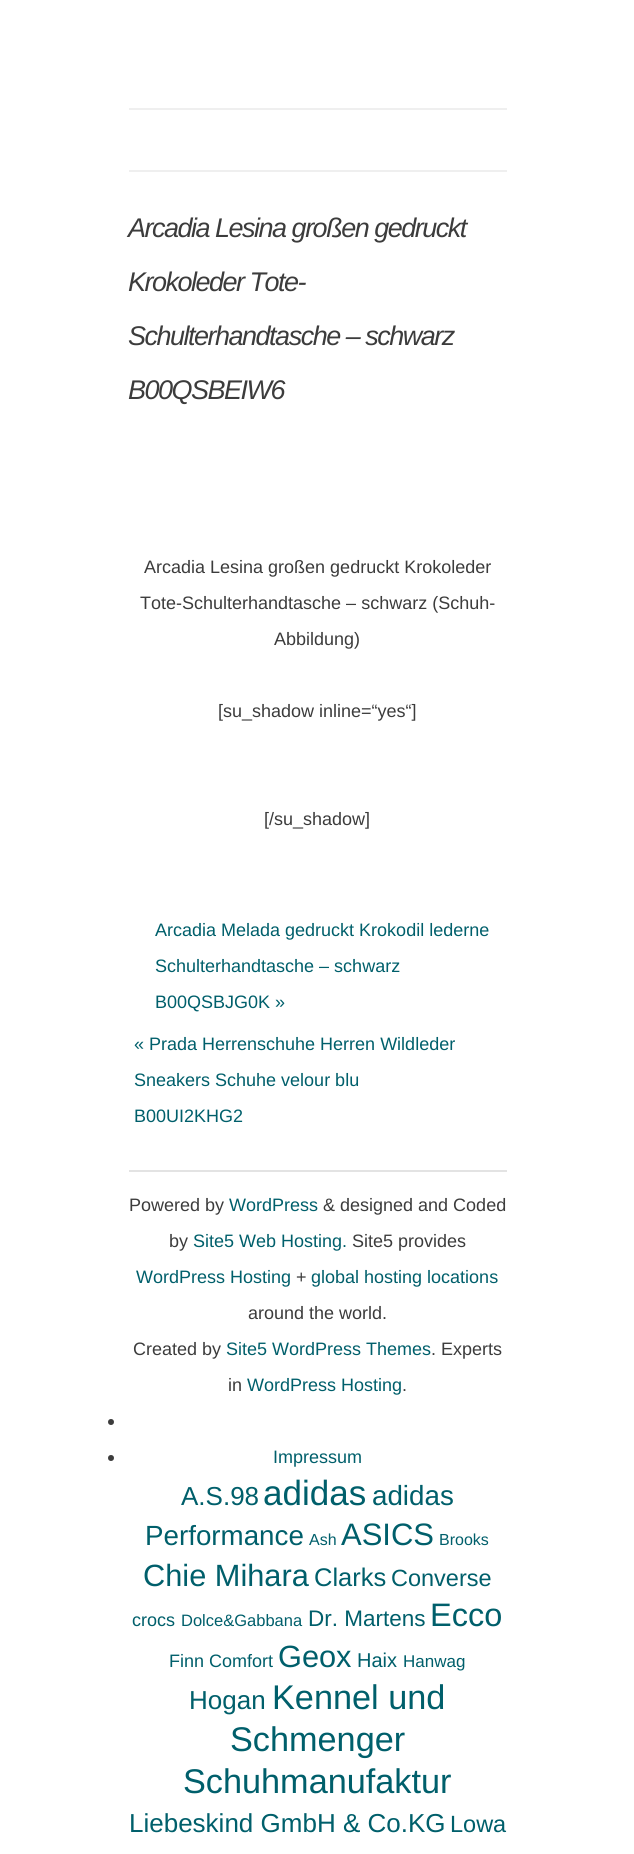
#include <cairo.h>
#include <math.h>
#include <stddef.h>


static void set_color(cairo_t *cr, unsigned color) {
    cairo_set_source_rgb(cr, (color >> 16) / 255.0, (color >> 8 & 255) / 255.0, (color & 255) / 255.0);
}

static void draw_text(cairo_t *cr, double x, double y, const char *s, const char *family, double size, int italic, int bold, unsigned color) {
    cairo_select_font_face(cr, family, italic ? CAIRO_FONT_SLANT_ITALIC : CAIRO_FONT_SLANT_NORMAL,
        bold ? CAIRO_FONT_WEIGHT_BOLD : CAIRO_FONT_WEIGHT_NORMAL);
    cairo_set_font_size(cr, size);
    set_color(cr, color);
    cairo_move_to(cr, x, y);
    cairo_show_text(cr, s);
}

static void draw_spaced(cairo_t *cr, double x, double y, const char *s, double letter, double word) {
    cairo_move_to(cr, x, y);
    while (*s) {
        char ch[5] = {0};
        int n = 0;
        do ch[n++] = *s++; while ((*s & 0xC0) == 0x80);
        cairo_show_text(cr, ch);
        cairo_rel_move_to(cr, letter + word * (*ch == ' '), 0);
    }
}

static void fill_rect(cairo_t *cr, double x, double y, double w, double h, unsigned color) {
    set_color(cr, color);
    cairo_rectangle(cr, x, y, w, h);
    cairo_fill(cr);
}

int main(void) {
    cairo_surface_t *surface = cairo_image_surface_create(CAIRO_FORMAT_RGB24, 634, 1854);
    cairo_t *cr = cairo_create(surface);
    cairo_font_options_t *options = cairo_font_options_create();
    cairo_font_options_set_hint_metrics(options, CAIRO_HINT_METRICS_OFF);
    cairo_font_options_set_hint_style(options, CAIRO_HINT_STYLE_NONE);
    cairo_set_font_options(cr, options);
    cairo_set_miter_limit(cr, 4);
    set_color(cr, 0xFFFFFF);
    cairo_paint(cr);
    fill_rect(cr, 129, 108, 378, 2, 0xEFEFEF);
    fill_rect(cr, 129, 170, 378, 2, 0xEFEFEF);
    cairo_select_font_face(cr, "Liberation Sans", CAIRO_FONT_SLANT_ITALIC, CAIRO_FONT_WEIGHT_NORMAL);
    cairo_set_font_size(cr, 27);
    set_color(cr, 0x3C3C3C);
    draw_spaced(cr, 128, 237, "Arcadia Lesina großen gedruckt", -1.5, 0);
    draw_spaced(cr, 128, 291, "Krokoleder Tote-", -1.5, 0);
    draw_spaced(cr, 128, 345, "Schulterhandtasche – schwarz", -1.5, 0);
    draw_spaced(cr, 128, 399, "B00QSBEIW6", -1.5, 0);
    draw_text(cr, 144, 573, "Arcadia Lesina großen gedruckt Krokoleder", "Liberation Sans", 18, 0, 0, 0x3C3C3C);
    draw_text(cr, 140, 609, "Tote-Schulterhandtasche – schwarz (Schuh-", "Liberation Sans", 18, 0, 0, 0x3C3C3C);
    draw_text(cr, 274, 645, "Abbildung)", "Liberation Sans", 18, 0, 0, 0x3C3C3C);
    draw_text(cr, 218, 717, "[su_shadow inline=“yes“]", "Liberation Sans", 18, 0, 0, 0x3C3C3C);
    draw_text(cr, 264, 825, "[/su_shadow]", "Liberation Sans", 18, 0, 0, 0x3C3C3C);
    draw_text(cr, 155, 936, "Arcadia Melada gedruckt Krokodil lederne", "Liberation Sans", 18, 0, 0, 0x005F6B);
    draw_text(cr, 155, 972, "Schulterhandtasche – schwarz", "Liberation Sans", 18, 0, 0, 0x005F6B);
    draw_text(cr, 155, 1008, "B00QSBJG0K »", "Liberation Sans", 18, 0, 0, 0x005F6B);
    draw_text(cr, 134, 1050, "« Prada Herrenschuhe Herren Wildleder", "Liberation Sans", 18, 0, 0, 0x005F6B);
    draw_text(cr, 134, 1086, "Sneakers Schuhe velour blu", "Liberation Sans", 18, 0, 0, 0x005F6B);
    draw_text(cr, 134, 1122, "B00UI2KHG2", "Liberation Sans", 18, 0, 0, 0x005F6B);
    fill_rect(cr, 129, 1170, 378, 2, 0xE3E3E3);
    draw_text(cr, 129, 1211, "Powered by", "Liberation Sans", 18, 0, 0, 0x3C3C3C);
    draw_text(cr, 229, 1211, "WordPress", "Liberation Sans", 18, 0, 0, 0x005F6B);
    draw_text(cr, 323, 1211, "& designed and Coded", "Liberation Sans", 18, 0, 0, 0x3C3C3C);
    draw_text(cr, 169, 1247, "by", "Liberation Sans", 18, 0, 0, 0x3C3C3C);
    draw_text(cr, 193, 1247, "Site5 Web Hosting.", "Liberation Sans", 18, 0, 0, 0x005F6B);
    draw_text(cr, 352, 1247, "Site5 provides", "Liberation Sans", 18, 0, 0, 0x3C3C3C);
    draw_text(cr, 136, 1283, "WordPress Hosting", "Liberation Sans", 18, 0, 0, 0x005F6B);
    draw_text(cr, 296, 1283, "+", "Liberation Sans", 18, 0, 0, 0x3C3C3C);
    draw_text(cr, 311, 1283, "global hosting locations", "Liberation Sans", 18, 0, 0, 0x005F6B);
    draw_text(cr, 248, 1319, "around the world.", "Liberation Sans", 18, 0, 0, 0x3C3C3C);
    draw_text(cr, 133, 1355, "Created by", "Liberation Sans", 18, 0, 0, 0x3C3C3C);
    draw_text(cr, 226, 1355, "Site5 WordPress Themes", "Liberation Sans", 18, 0, 0, 0x005F6B);
    draw_text(cr, 431, 1355, ". Experts", "Liberation Sans", 18, 0, 0, 0x3C3C3C);
    draw_text(cr, 228, 1391, "in", "Liberation Sans", 18, 0, 0, 0x3C3C3C);
    draw_text(cr, 247, 1391, "WordPress Hosting", "Liberation Sans", 18, 0, 0, 0x005F6B);
    draw_text(cr, 402, 1391, ".", "Liberation Sans", 18, 0, 0, 0x3C3C3C);
    cairo_new_path(cr);
    cairo_arc(cr, 111, 1422, 3, 0, 2 * M_PI);
    cairo_fill(cr);
    cairo_arc(cr, 111, 1458, 3, 0, 2 * M_PI);
    cairo_fill(cr);
    draw_text(cr, 273, 1463, "Impressum", "Liberation Sans", 18, 0, 0, 0x005F6B);
    draw_text(cr, 181, 1505, "A.S.98", "Liberation Sans", 26, 0, 0, 0x005F6B);
    draw_text(cr, 263, 1505, "adidas", "Liberation Sans", 35, 0, 0, 0x005F6B);
    draw_text(cr, 372, 1505, "adidas", "Liberation Sans", 27.75, 0, 0, 0x005F6B);
    draw_text(cr, 145, 1545, "Performance", "Liberation Sans", 27.75, 0, 0, 0x005F6B);
    draw_text(cr, 309, 1545, "Ash", "Liberation Sans", 16, 0, 0, 0x005F6B);
    draw_text(cr, 341, 1545, "ASICS", "Liberation Sans", 31, 0, 0, 0x005F6B);
    draw_text(cr, 439, 1545, "Brooks", "Liberation Sans", 16, 0, 0, 0x005F6B);
    draw_text(cr, 143, 1586, "Chie Mihara", "Liberation Sans", 30.75, 0, 0, 0x005F6B);
    draw_text(cr, 314, 1586, "Clarks", "Liberation Sans", 25.5, 0, 0, 0x005F6B);
    draw_text(cr, 391, 1586, "Converse", "Liberation Sans", 23.5, 0, 0, 0x005F6B);
    draw_text(cr, 132, 1626, "crocs", "Liberation Sans", 18, 0, 0, 0x005F6B);
    draw_text(cr, 181, 1626, "Dolce&Gabbana", "Liberation Sans", 16.5, 0, 0, 0x005F6B);
    draw_text(cr, 308, 1626, "Dr. Martens", "Liberation Sans", 22.5, 0, 0, 0x005F6B);
    draw_text(cr, 430, 1626, "Ecco", "Liberation Sans", 32.5, 0, 0, 0x005F6B);
    draw_text(cr, 169, 1667, "Finn Comfort", "Liberation Sans", 18, 0, 0, 0x005F6B);
    draw_text(cr, 278, 1667, "Geox", "Liberation Sans", 30.75, 0, 0, 0x005F6B);
    draw_text(cr, 357, 1667, "Haix", "Liberation Sans", 20, 0, 0, 0x005F6B);
    draw_text(cr, 403, 1667, "Hanwag", "Liberation Sans", 17, 0, 0, 0x005F6B);
    draw_text(cr, 189, 1709, "Hogan", "Liberation Sans", 26, 0, 0, 0x005F6B);
    draw_text(cr, 272, 1709, "Kennel und", "Liberation Sans", 34.25, 0, 0, 0x005F6B);
    draw_text(cr, 230, 1751, "Schmenger", "Liberation Sans", 34.25, 0, 0, 0x005F6B);
    draw_text(cr, 183, 1793, "Schuhmanufaktur", "Liberation Sans", 34.25, 0, 0, 0x005F6B);
    draw_text(cr, 129, 1832, "Liebeskind GmbH & Co.KG", "Liberation Sans", 26, 0, 0, 0x005F6B);
    draw_text(cr, 450, 1832, "Lowa", "Liberation Sans", 23.5, 0, 0, 0x005F6B);
    cairo_surface_write_to_png(surface, "output.png");
    cairo_font_options_destroy(options);
    cairo_destroy(cr);
    cairo_surface_destroy(surface);
    return 0;
}
